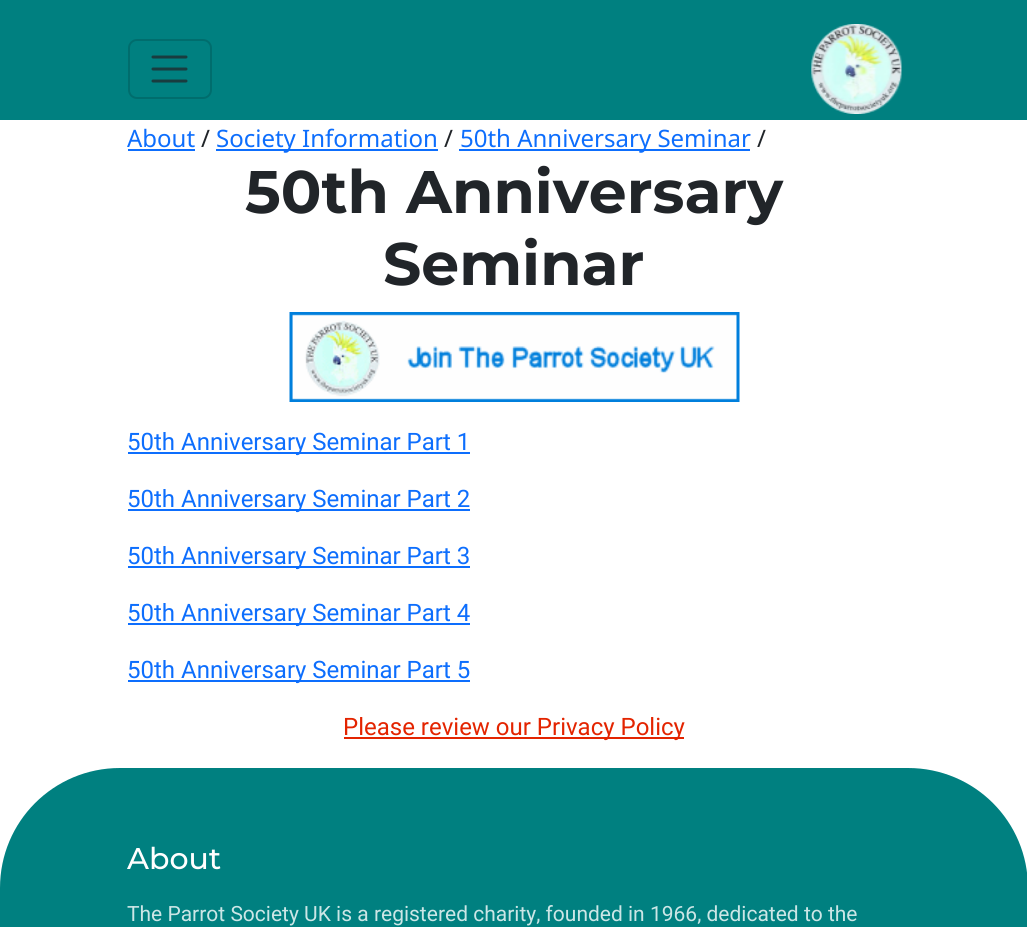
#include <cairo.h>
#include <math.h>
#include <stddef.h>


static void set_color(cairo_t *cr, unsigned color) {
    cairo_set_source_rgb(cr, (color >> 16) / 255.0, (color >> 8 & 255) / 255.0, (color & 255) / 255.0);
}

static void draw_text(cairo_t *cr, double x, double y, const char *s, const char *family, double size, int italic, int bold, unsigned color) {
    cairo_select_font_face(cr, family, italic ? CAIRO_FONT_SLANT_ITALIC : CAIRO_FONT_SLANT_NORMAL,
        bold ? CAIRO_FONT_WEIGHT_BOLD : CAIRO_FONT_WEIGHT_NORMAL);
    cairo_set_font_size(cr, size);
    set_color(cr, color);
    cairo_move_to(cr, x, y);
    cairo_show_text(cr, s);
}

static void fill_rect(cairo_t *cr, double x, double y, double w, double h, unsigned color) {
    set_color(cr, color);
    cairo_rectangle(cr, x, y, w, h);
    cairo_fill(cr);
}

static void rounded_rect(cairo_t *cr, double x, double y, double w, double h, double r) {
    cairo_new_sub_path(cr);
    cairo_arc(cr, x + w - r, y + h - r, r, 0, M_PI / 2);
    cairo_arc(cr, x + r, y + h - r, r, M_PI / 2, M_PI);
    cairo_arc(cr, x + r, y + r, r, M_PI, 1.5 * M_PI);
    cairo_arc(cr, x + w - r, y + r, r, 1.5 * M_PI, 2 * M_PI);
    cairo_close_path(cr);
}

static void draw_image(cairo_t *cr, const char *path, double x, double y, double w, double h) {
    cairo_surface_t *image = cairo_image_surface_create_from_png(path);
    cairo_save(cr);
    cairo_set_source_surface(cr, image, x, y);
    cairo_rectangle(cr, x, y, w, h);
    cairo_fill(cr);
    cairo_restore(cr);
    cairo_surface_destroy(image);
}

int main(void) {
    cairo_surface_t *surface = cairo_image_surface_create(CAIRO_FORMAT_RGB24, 1027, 927);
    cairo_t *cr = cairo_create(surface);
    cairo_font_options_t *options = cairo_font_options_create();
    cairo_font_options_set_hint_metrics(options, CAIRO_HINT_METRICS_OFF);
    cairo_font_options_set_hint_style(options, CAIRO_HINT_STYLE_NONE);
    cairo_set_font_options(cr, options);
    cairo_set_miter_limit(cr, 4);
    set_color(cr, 0xFFFFFF);
    cairo_paint(cr);
    fill_rect(cr, 0, 0, 1027, 120, 0x008080);
    rounded_rect(cr, 129, 40, 82, 58, 8);
    set_color(cr, 0x006D6D);
    cairo_stroke(cr);
    cairo_new_path(cr);
    cairo_move_to(cr, 153, 57);
    cairo_line_to(cr, 186, 57);
    cairo_move_to(cr, 153, 69);
    cairo_line_to(cr, 186, 69);
    cairo_move_to(cr, 153, 81);
    cairo_line_to(cr, 186, 81);
    set_color(cr, 0x193C3F);
    cairo_set_line_width(cr, 3);
    cairo_set_line_cap(cr, CAIRO_LINE_CAP_ROUND);
    cairo_stroke(cr);
    draw_image(cr, "assets/img1.png", 811, 24, 91, 90);
    draw_text(cr, 127, 147, "About", "Noto Sans", 24, 0, 0, 0x0D6EFD);
    fill_rect(cr, 128, 149, 67, 2, 0x0D6EFD);
    draw_text(cr, 201, 147, "/", "Noto Sans", 24, 0, 0, 0x212529);
    fill_rect(cr, 216, 149, 222, 2, 0x0D6EFD);
    draw_text(cr, 216, 147, "Society Information", "Noto Sans", 24, 0, 0, 0x0D6EFD);
    draw_text(cr, 444, 147, "/", "Noto Sans", 24, 0, 0, 0x212529);
    fill_rect(cr, 459, 149, 291, 2, 0x0D6EFD);
    draw_text(cr, 460, 147, "50th Anniversary Seminar", "Noto Sans", 24, 0, 0, 0x0D6EFD);
    draw_text(cr, 757, 147, "/", "Noto Sans", 24, 0, 0, 0x212529);
    draw_text(cr, 245, 213, "50th Anniversary", "Montserrat", 60, 0, 1, 0x212529);
    draw_text(cr, 383, 285, "Seminar", "Montserrat", 60, 0, 1, 0x212529);
    draw_image(cr, "assets/img2.png", 289, 312, 451, 90);
    fill_rect(cr, 128, 452, 342, 2, 0x0D6EFD);
    draw_text(cr, 127, 450, "50th Anniversary Seminar Part 1", "Roboto", 24, 0, 0, 0x0D6EFD);
    fill_rect(cr, 128, 509, 342, 2, 0x0D6EFD);
    draw_text(cr, 127, 507, "50th Anniversary Seminar Part 2", "Roboto", 24, 0, 0, 0x0D6EFD);
    fill_rect(cr, 128, 566, 342, 2, 0x0D6EFD);
    draw_text(cr, 127, 564, "50th Anniversary Seminar Part 3", "Roboto", 24, 0, 0, 0x0D6EFD);
    fill_rect(cr, 128, 623, 342, 2, 0x0D6EFD);
    draw_text(cr, 127, 621, "50th Anniversary Seminar Part 4", "Roboto", 24, 0, 0, 0x0D6EFD);
    fill_rect(cr, 128, 680, 342, 2, 0x0D6EFD);
    draw_text(cr, 127, 678, "50th Anniversary Seminar Part 5", "Roboto", 24, 0, 0, 0x0D6EFD);
    fill_rect(cr, 344, 737, 340, 2, 0xE32400);
    draw_text(cr, 343, 735, "Please review our Privacy Policy", "Roboto", 24, 0, 0, 0xE32400);
    set_color(cr, 0x008080);
    cairo_new_path(cr);
    cairo_move_to(cr, 120, 768);
    cairo_line_to(cr, 908, 768);
    cairo_curve_to(cr, 974.5, 768, 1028, 821.5, 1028, 888);
    cairo_line_to(cr, 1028, 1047);
    cairo_line_to(cr, 0, 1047);
    cairo_line_to(cr, 0, 888);
    cairo_curve_to(cr, 0, 821.5, 53.5, 768, 120, 768);
    cairo_close_path(cr);
    cairo_fill(cr);
    draw_text(cr, 127, 869, "About", "Montserrat Medium", 30, 0, 0, 0xFFFFFF);
    draw_text(cr, 127, 921, "The Parrot Society UK is a registered charity, founded in 1966, dedicated to the", "Roboto", 21, 0, 0, 0xCCE6E6);
    cairo_surface_write_to_png(surface, "output.png");
    cairo_font_options_destroy(options);
    cairo_destroy(cr);
    cairo_surface_destroy(surface);
    return 0;
}
